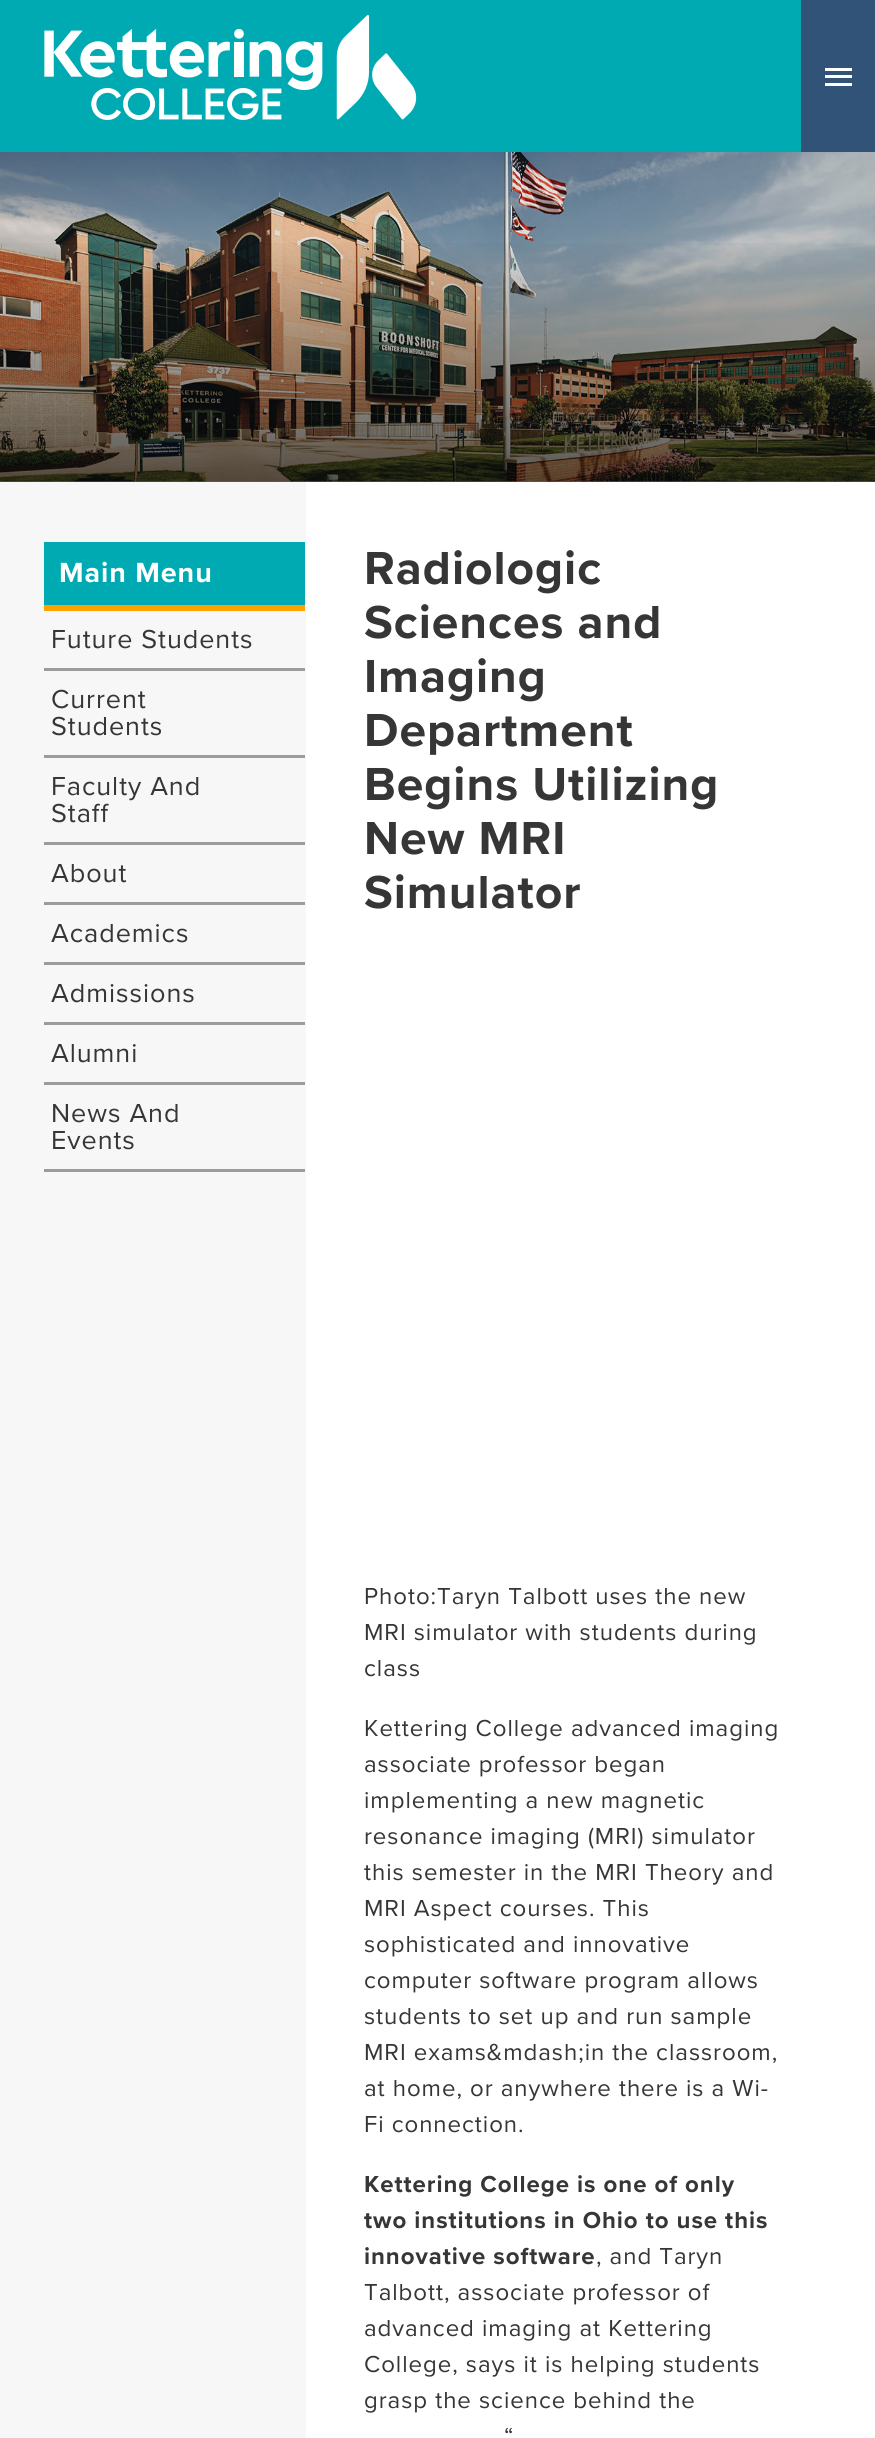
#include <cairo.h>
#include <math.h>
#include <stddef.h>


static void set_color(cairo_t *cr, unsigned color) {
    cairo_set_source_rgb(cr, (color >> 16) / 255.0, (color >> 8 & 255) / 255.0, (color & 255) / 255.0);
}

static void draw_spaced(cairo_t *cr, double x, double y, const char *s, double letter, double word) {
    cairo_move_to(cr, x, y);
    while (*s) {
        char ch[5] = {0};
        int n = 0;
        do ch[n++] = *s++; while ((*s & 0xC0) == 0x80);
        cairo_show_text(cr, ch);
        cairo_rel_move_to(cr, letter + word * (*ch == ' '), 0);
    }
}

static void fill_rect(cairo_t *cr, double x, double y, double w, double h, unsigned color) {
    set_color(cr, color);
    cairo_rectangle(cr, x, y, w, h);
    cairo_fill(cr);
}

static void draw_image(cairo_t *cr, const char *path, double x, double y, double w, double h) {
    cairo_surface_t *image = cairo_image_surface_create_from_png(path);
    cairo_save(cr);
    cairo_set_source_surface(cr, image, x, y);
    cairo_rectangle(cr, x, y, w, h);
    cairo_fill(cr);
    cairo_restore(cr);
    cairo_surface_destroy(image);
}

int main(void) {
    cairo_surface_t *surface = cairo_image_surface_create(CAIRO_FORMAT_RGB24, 875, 2438);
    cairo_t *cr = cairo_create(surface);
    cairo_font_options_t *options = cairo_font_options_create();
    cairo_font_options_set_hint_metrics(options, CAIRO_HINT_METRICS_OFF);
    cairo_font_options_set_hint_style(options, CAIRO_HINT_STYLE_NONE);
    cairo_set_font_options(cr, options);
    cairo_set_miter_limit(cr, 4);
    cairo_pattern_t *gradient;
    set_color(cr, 0xFFFFFF);
    cairo_paint(cr);
    fill_rect(cr, 0, 0, 801, 152, 0x00AAB3);
    draw_image(cr, "assets/img1.png", 44, 15, 373, 105);
    fill_rect(cr, 801, 0, 74, 152, 0x315378);
    fill_rect(cr, 825, 75, 27, 3, 0xFFFFFF);
    fill_rect(cr, 825, 68, 27, 3, 0xFFFFFF);
    fill_rect(cr, 825, 83, 27, 3, 0xFFFFFF);
    draw_image(cr, "assets/img2.png", 0, 152, 875, 330);
    gradient = cairo_pattern_create_linear(438, 151, 438, 482);
    cairo_pattern_add_color_stop_rgba(gradient, 0.25, 0, 0, 0, 0);
    cairo_pattern_add_color_stop_rgba(gradient, 1, 0, 0, 0, 0.6);
    cairo_set_source(cr, gradient);
    cairo_pattern_destroy(gradient);
    cairo_rectangle(cr, 0, 243, 875, 239);
    cairo_fill(cr);
    fill_rect(cr, 0, 482, 306, 1956, 0xF8F7F7);
    fill_rect(cr, 44, 542, 261, 63, 0x00AAB3);
    cairo_select_font_face(cr, "Proxima Nova", CAIRO_FONT_SLANT_NORMAL, CAIRO_FONT_WEIGHT_BOLD);
    cairo_set_font_size(cr, 28.75);
    set_color(cr, 0xFFFFFF);
    draw_spaced(cr, 59, 582, "Main Menu", 0.95, 0);
    fill_rect(cr, 44, 605, 261, 6, 0xFFA200);
    fill_rect(cr, 44, 668, 261, 3, 0x9B9B9E);
    cairo_select_font_face(cr, "Proxima Nova", CAIRO_FONT_SLANT_NORMAL, CAIRO_FONT_WEIGHT_NORMAL);
    cairo_set_font_size(cr, 27);
    set_color(cr, 0x363636);
    draw_spaced(cr, 51, 648, "Future Students", 0.95, 0);
    fill_rect(cr, 44, 755, 261, 3, 0x9B9B9E);
    set_color(cr, 0x363636);
    draw_spaced(cr, 51, 708, "Current", 0.95, 0);
    draw_spaced(cr, 51, 735, "Students", 0.95, 0);
    fill_rect(cr, 44, 842, 261, 3, 0x9B9B9E);
    set_color(cr, 0x363636);
    draw_spaced(cr, 51, 795, "Faculty And", 0.95, 0);
    draw_spaced(cr, 51, 822, "Staff", 0.95, 0);
    fill_rect(cr, 44, 902, 261, 3, 0x9B9B9E);
    set_color(cr, 0x363636);
    draw_spaced(cr, 51, 882, "About", 0.95, 0);
    fill_rect(cr, 44, 962, 261, 3, 0x9B9B9E);
    set_color(cr, 0x363636);
    draw_spaced(cr, 51, 942, "Academics", 0.95, 0);
    fill_rect(cr, 44, 1022, 261, 3, 0x9B9B9E);
    set_color(cr, 0x363636);
    draw_spaced(cr, 51, 1002, "Admissions", 0.95, 0);
    fill_rect(cr, 44, 1082, 261, 3, 0x9B9B9E);
    set_color(cr, 0x363636);
    draw_spaced(cr, 51, 1062, "Alumni", 0.95, 0);
    fill_rect(cr, 44, 1169, 261, 3, 0x9B9B9E);
    set_color(cr, 0x363636);
    draw_spaced(cr, 51, 1122, "News And", 0.95, 0);
    draw_spaced(cr, 51, 1149, "Events", 0.95, 0);
    cairo_select_font_face(cr, "Proxima Nova", CAIRO_FONT_SLANT_NORMAL, CAIRO_FONT_WEIGHT_BOLD);
    cairo_set_font_size(cr, 48);
    draw_spaced(cr, 364, 584, "Radiologic", 0.95, 0);
    draw_spaced(cr, 364, 638, "Sciences and", 0.95, 0);
    draw_spaced(cr, 364, 692, "Imaging", 0.95, 0);
    draw_spaced(cr, 364, 746, "Department", 0.95, 0);
    draw_spaced(cr, 364, 800, "Begins Utilizing", 0.95, 0);
    draw_spaced(cr, 364, 854, "New MRI", 0.95, 0);
    draw_spaced(cr, 364, 908, "Simulator", 0.95, 0);
    cairo_select_font_face(cr, "Proxima Nova", CAIRO_FONT_SLANT_NORMAL, CAIRO_FONT_WEIGHT_NORMAL);
    cairo_set_font_size(cr, 24);
    draw_spaced(cr, 364, 1604, "Photo:Taryn Talbott uses the new", 0.95, 0);
    draw_spaced(cr, 364, 1640, "MRI simulator with students during", 0.95, 0);
    draw_spaced(cr, 364, 1676, "class", 0.95, 0);
    draw_spaced(cr, 364, 1736, "Kettering College advanced imaging", 0.95, 0);
    draw_spaced(cr, 364, 1772, "associate professor began", 0.95, 0);
    draw_spaced(cr, 364, 1808, "implementing a new magnetic", 0.95, 0);
    draw_spaced(cr, 364, 1844, "resonance imaging (MRI) simulator", 0.95, 0);
    draw_spaced(cr, 364, 1880, "this semester in the MRI Theory and", 0.95, 0);
    draw_spaced(cr, 364, 1916, "MRI Aspect courses. This", 0.95, 0);
    draw_spaced(cr, 364, 1952, "sophisticated and innovative", 0.95, 0);
    draw_spaced(cr, 364, 1988, "computer software program allows", 0.95, 0);
    draw_spaced(cr, 364, 2024, "students to set up and run sample", 0.95, 0);
    draw_spaced(cr, 364, 2060, "MRI exams&mdash;in the classroom,", 0.95, 0);
    draw_spaced(cr, 364, 2096, "at home, or anywhere there is a Wi-", 0.95, 0);
    draw_spaced(cr, 364, 2132, "Fi connection.", 0.95, 0);
    cairo_select_font_face(cr, "Proxima Nova", CAIRO_FONT_SLANT_NORMAL, CAIRO_FONT_WEIGHT_BOLD);
    draw_spaced(cr, 364, 2192, "Kettering College is one of only", 0.95, 0);
    draw_spaced(cr, 364, 2228, "two institutions in Ohio to use this", 0.95, 0);
    draw_spaced(cr, 364, 2264, "innovative software", 0.95, 0);
    cairo_select_font_face(cr, "Proxima Nova", CAIRO_FONT_SLANT_NORMAL, CAIRO_FONT_WEIGHT_NORMAL);
    draw_spaced(cr, 596, 2264, ", and Taryn", 0.95, 0);
    draw_spaced(cr, 364, 2300, "Talbott, associate professor of", 0.95, 0);
    draw_spaced(cr, 364, 2336, "advanced imaging at Kettering", 0.95, 0);
    draw_spaced(cr, 364, 2372, "College, says it is helping students", 0.95, 0);
    draw_spaced(cr, 364, 2408, "grasp the science behind the", 0.95, 0);
    draw_spaced(cr, 504, 2444, "“", 0.95, 0);
    cairo_surface_write_to_png(surface, "output.png");
    cairo_font_options_destroy(options);
    cairo_destroy(cr);
    cairo_surface_destroy(surface);
    return 0;
}
